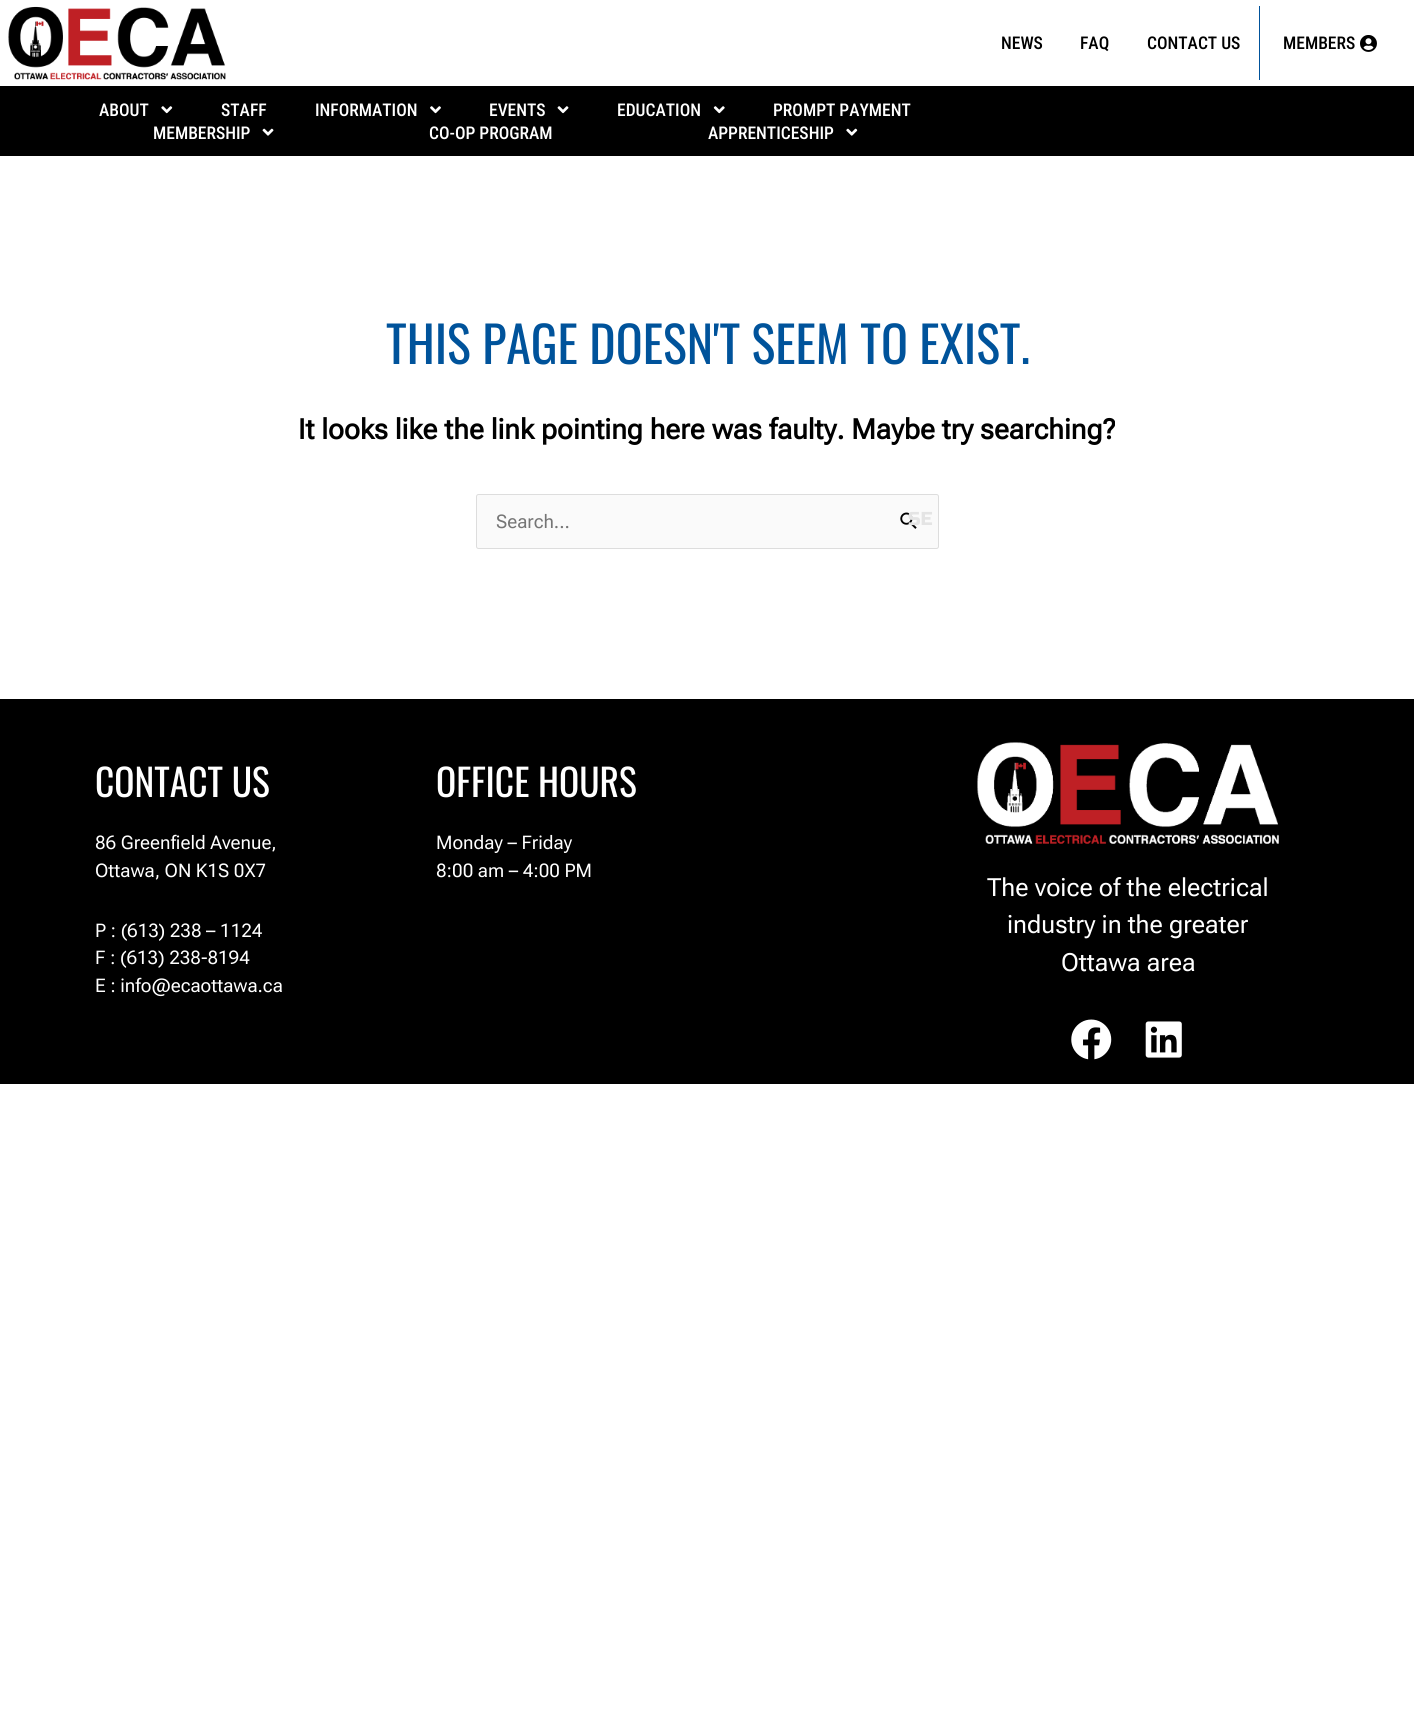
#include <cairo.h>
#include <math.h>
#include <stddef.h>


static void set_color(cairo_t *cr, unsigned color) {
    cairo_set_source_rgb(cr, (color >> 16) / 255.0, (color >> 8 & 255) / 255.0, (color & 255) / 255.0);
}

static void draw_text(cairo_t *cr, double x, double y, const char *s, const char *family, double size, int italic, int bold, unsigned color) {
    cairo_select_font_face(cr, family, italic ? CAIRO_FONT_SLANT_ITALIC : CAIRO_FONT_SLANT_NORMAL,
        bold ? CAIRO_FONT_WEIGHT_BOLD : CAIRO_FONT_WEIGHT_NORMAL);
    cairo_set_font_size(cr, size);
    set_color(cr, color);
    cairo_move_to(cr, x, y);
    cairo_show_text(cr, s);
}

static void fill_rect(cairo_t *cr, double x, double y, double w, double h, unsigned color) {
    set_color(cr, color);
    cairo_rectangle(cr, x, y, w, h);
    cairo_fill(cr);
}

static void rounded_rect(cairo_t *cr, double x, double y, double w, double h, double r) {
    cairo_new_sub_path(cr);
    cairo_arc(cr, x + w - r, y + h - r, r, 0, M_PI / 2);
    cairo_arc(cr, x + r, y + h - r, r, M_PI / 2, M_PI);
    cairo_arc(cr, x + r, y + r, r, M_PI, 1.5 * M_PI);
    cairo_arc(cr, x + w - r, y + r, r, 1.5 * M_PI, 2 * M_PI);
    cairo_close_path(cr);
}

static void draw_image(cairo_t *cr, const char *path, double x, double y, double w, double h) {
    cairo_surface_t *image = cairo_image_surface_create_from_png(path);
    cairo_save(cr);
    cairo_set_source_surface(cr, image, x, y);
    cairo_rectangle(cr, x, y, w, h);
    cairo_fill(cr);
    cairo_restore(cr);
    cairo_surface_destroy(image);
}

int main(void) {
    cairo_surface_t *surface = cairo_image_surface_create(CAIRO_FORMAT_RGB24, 1414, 1721);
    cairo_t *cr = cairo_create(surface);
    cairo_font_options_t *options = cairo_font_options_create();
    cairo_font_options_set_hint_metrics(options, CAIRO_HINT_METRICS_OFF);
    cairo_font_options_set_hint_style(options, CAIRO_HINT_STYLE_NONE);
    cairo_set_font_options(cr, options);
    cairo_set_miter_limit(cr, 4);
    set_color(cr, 0xFFFFFF);
    cairo_paint(cr);
    draw_image(cr, "assets/img1.png", 8, 6, 218, 74);
    draw_text(cr, 1001, 49, "NEWS", "Roboto Condensed Medium", 17.5, 0, 0, 0x000000);
    draw_text(cr, 1080, 49, "FAQ", "Roboto Condensed Medium", 17.5, 0, 0, 0x000000);
    draw_text(cr, 1147, 49, "CONTACT US", "Roboto Condensed Medium", 17.5, 0, 0, 0x000000);
    fill_rect(cr, 1259, 6, 1, 74, 0x00529B);
    draw_text(cr, 1283, 49, "MEMBERS", "Roboto Condensed Medium", 17.5, 0, 0, 0x000000);
    draw_image(cr, "assets/img2.png", 1360, 35, 17, 17);
    fill_rect(cr, 0, 86, 1414, 70, 0x000000);
    draw_text(cr, 99, 116, "ABOUT", "Roboto Condensed Medium", 17.5, 0, 0, 0xFFFFFF);
    draw_image(cr, "assets/img3.png", 161, 106, 12, 8);
    draw_text(cr, 221, 116, "STAFF", "Roboto Condensed Medium", 17.5, 0, 0, 0xFFFFFF);
    draw_text(cr, 315, 116, "INFORMATION", "Roboto Condensed Medium", 17.5, 0, 0, 0xFFFFFF);
    draw_image(cr, "assets/img4.png", 430, 106, 11, 8);
    draw_text(cr, 489, 116, "EVENTS", "Roboto Condensed Medium", 17.5, 0, 0, 0xFFFFFF);
    draw_image(cr, "assets/img5.png", 557, 106, 12, 8);
    draw_text(cr, 617, 116, "EDUCATION", "Roboto Condensed Medium", 17.5, 0, 0, 0xFFFFFF);
    draw_image(cr, "assets/img6.png", 713, 106, 12, 8);
    draw_text(cr, 773, 116, "PROMPT PAYMENT", "Roboto Condensed Medium", 17.5, 0, 0, 0xFFFFFF);
    draw_text(cr, 153, 139, "MEMBERSHIP", "Roboto Condensed Medium", 17.5, 0, 0, 0xFFFFFF);
    draw_image(cr, "assets/img7.png", 262, 128, 12, 8);
    draw_text(cr, 429, 139, "CO-OP PROGRAM", "Roboto Condensed Medium", 17.5, 0, 0, 0xFFFFFF);
    draw_text(cr, 708, 139, "APPRENTICESHIP", "Roboto Condensed Medium", 17.5, 0, 0, 0xFFFFFF);
    draw_image(cr, "assets/img8.png", 846, 128, 12, 8);
    draw_text(cr, 386, 364, "THIS PAGE DOESN'T SEEM TO EXIST.", "Oswald", 50, 0, 0, 0x00539B);
    draw_text(cr, 298, 439, "It looks like the link pointing here was faulty. Maybe try searching?", "Roboto Flex", 28.1, 0, 1, 0x000000);
    set_color(cr, 0xFAFAFA);
    rounded_rect(cr, 476.5, 494.5, 462, 54, 2);
    cairo_fill_preserve(cr);
    set_color(cr, 0xDDDDDD);
    cairo_set_line_width(cr, 1);
    cairo_stroke(cr);
    draw_image(cr, "assets/img9.png", 900, 512, 17, 17);
    draw_text(cr, 908, 525, "SE", "Russo One", 18.75, 0, 0, 0xE4E4E4);
    draw_text(cr, 496, 528, "Search...", "Roboto Flex", 18.75, 0, 0, 0x757575);
    fill_rect(cr, 0, 699, 1414, 385, 0x000000);
    draw_text(cr, 95, 797, "CONTACT US", "Oswald", 37.5, 0, 0, 0xFFFFFF);
    draw_text(cr, 95, 849, "86 Greenfield Avenue,", "Roboto Flex", 18.75, 0, 0, 0xFFFFFF);
    draw_text(cr, 95, 877, "Ottawa, ON K1S 0X7", "Roboto Flex", 18.75, 0, 0, 0xFFFFFF);
    draw_text(cr, 95, 937, "P : (613) 238 – 1124", "Roboto Flex", 18.75, 0, 0, 0xFFFFFF);
    draw_text(cr, 95, 964, "F : (613) 238-8194", "Roboto Flex", 18.75, 0, 0, 0xFFFFFF);
    draw_text(cr, 95, 992, "E : info@ecaottawa.ca", "Roboto Flex", 18.75, 0, 0, 0xFFFFFF);
    draw_text(cr, 436, 797, "OFFICE HOURS", "Oswald", 37.5, 0, 0, 0xFFFFFF);
    draw_text(cr, 436, 849, "Monday – Friday", "Roboto Flex", 18.75, 0, 0, 0xFFFFFF);
    draw_text(cr, 436, 877, "8:00 am – 4:00 PM", "Roboto Flex", 18.75, 0, 0, 0xFFFFFF);
    draw_image(cr, "assets/img10.png", 977, 742, 302, 102);
    draw_text(cr, 987, 896, "The voice of the electrical", "Roboto Flex", 25, 0, 0, 0xFFFFFF);
    draw_text(cr, 1007, 933, "industry in the greater", "Roboto Flex", 25, 0, 0, 0xFFFFFF);
    draw_text(cr, 1061, 971, "Ottawa area", "Roboto Flex", 25, 0, 0, 0xFFFFFF);
    draw_image(cr, "assets/img11.png", 1071, 1019, 41, 41);
    draw_image(cr, "assets/img12.png", 1145, 1021, 37, 37);
    cairo_surface_write_to_png(surface, "output.png");
    cairo_font_options_destroy(options);
    cairo_destroy(cr);
    cairo_surface_destroy(surface);
    return 0;
}
